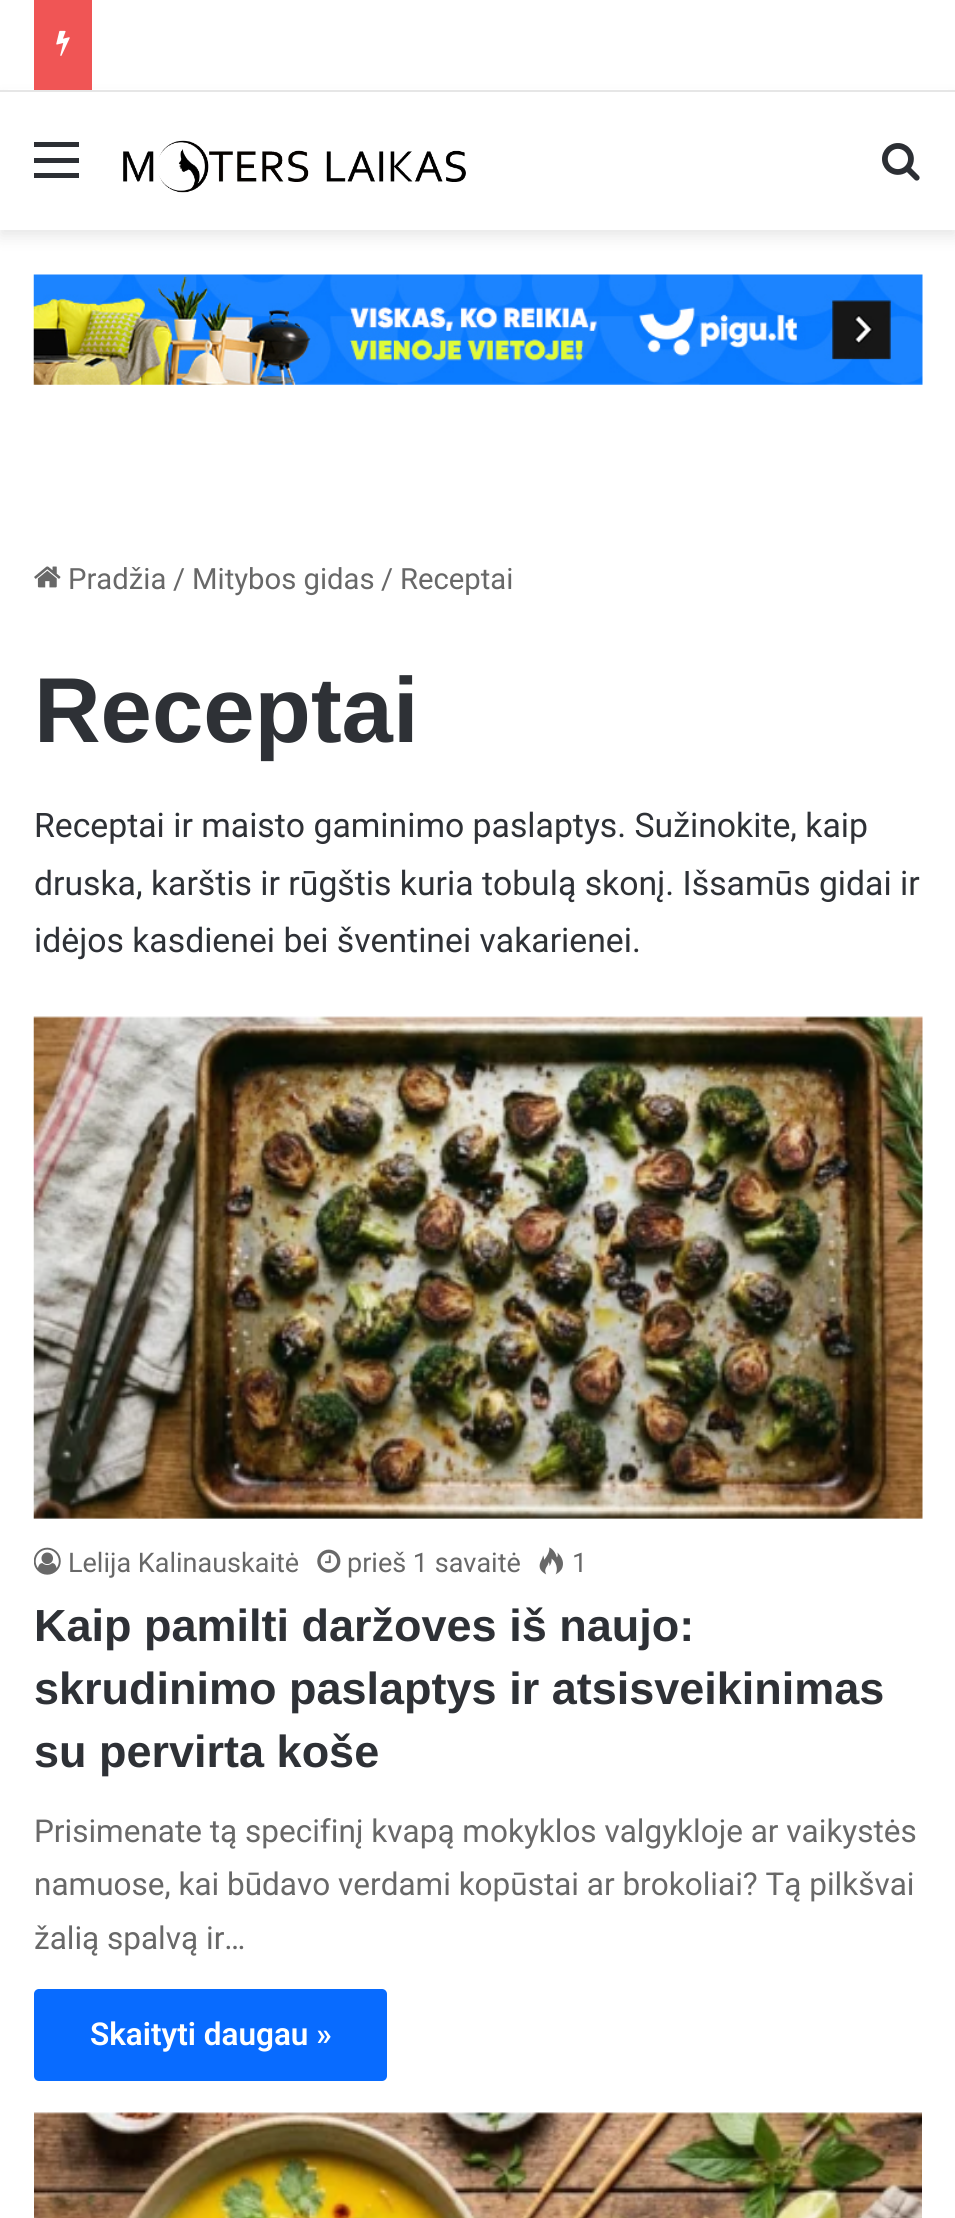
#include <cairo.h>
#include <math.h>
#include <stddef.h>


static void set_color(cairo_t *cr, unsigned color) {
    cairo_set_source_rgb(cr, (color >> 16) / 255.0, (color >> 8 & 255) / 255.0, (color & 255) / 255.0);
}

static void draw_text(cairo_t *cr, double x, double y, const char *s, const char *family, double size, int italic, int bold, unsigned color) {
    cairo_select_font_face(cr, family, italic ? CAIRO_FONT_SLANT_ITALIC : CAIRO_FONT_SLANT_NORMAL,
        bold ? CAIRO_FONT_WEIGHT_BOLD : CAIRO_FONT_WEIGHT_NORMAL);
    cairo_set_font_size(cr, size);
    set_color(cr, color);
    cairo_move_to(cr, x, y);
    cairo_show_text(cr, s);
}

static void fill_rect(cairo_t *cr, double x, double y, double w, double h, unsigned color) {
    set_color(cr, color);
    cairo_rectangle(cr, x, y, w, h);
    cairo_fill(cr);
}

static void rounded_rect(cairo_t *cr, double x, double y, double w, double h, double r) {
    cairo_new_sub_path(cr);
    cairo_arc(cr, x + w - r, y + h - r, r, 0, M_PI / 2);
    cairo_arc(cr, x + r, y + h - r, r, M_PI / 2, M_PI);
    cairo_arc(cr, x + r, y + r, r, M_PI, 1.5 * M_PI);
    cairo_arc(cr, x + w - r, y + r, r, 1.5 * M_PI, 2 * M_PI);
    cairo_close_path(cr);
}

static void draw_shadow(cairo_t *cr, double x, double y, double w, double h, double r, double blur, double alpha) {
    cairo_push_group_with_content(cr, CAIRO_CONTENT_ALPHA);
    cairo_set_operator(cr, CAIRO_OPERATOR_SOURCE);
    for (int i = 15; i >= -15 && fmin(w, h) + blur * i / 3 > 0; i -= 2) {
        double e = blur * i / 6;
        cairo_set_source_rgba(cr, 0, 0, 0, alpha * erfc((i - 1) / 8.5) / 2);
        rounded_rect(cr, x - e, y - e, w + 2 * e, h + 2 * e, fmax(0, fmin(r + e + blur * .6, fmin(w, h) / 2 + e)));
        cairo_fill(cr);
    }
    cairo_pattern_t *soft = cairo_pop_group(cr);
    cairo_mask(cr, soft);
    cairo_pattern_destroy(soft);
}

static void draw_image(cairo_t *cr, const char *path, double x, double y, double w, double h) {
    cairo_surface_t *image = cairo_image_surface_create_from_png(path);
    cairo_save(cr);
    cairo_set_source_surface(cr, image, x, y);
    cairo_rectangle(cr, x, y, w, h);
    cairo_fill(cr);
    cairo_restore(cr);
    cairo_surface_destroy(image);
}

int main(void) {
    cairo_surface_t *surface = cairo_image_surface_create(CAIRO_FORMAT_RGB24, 955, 2218);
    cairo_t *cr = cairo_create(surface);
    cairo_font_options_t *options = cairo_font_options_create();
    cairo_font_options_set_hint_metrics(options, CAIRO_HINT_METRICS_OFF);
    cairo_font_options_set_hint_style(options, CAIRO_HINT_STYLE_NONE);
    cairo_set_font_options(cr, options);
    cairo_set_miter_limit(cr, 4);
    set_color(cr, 0xFFFFFF);
    cairo_paint(cr);
    set_color(cr, 0x000000);
    draw_shadow(cr, 0, 99, 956, 137, 0, 8, 0.1);
    fill_rect(cr, 8, 89, 940, 1, 0xFFFFFF);
    fill_rect(cr, 0, 90, 955, 2, 0xE6E6E6);
    fill_rect(cr, 34, 0, 58, 90, 0xF05555);
    draw_image(cr, "assets/img1.png", 56, 30, 14, 26);
    fill_rect(cr, 0, 92, 955, 138, 0xFFFFFF);
    fill_rect(cr, 34, 158, 45, 5, 0x2C2F34);
    fill_rect(cr, 34, 142, 45, 5, 0x2C2F34);
    fill_rect(cr, 34, 173, 45, 5, 0x2C2F34);
    draw_image(cr, "assets/img2.png", 123, 140, 343, 53);
    draw_image(cr, "assets/img3.png", 882, 143, 38, 38);
    draw_image(cr, "assets/img4.png", 33, 274, 890, 111);
    draw_image(cr, "assets/img5.png", 34, 566, 27, 22);
    draw_text(cr, 68, 589, "Pradžia", "Roboto", 29.25, 0, 0, 0x686868);
    draw_text(cr, 173, 589, "/", "Roboto", 29.25, 0, 0, 0x686868);
    draw_text(cr, 192, 589, "Mitybos gidas", "Roboto", 29.25, 0, 0, 0x686868);
    draw_text(cr, 381, 589, "/", "Roboto", 29.25, 0, 0, 0x686868);
    draw_text(cr, 400, 589, "Receptai", "Roboto", 29.25, 0, 0, 0x686868);
    draw_text(cr, 34, 742, "Receptai", "Liberation Sans", 92.25, 0, 1, 0x2E3136);
    draw_text(cr, 34, 837, "Receptai ir maisto gaminimo paslaptys. Sužinokite, kaip", "Roboto", 33.75, 0, 0, 0x2E3136);
    draw_text(cr, 34, 895, "druska, karštis ir rūgštis kuria tobulą skonį. Išsamūs gidai ir", "Roboto", 33.75, 0, 0, 0x2E3136);
    draw_text(cr, 34, 952, "idėjos kasdienei bei šventinei vakarienei.", "Roboto", 33.75, 0, 0, 0x2E3136);
    draw_image(cr, "assets/img6.png", 33, 1016, 890, 503);
    draw_image(cr, "assets/img7.png", 34, 1547, 27, 28);
    draw_text(cr, 68, 1572, "Lelija Kalinauskaitė", "Roboto", 27, 0, 0, 0x686868);
    draw_image(cr, "assets/img8.png", 317, 1549, 24, 24);
    draw_text(cr, 347, 1572, "prieš 1 savaitė", "Roboto", 27, 0, 0, 0x686868);
    draw_image(cr, "assets/img9.png", 539, 1547, 24, 28);
    draw_text(cr, 572, 1572, "1", "Roboto", 27, 0, 0, 0x686868);
    draw_text(cr, 34, 1641, "Kaip pamilti daržoves iš naujo:", "Liberation Sans", 45, 0, 1, 0x2E3136);
    draw_text(cr, 34, 1704, "skrudinimo paslaptys ir atsisveikinimas", "Liberation Sans", 45, 0, 1, 0x2E3136);
    draw_text(cr, 34, 1767, "su pervirta koše", "Liberation Sans", 45, 0, 1, 0x2E3136);
    draw_text(cr, 34, 1842, "Prisimenate tą specifinį kvapą mokyklos valgykloje ar vaikystės", "Roboto", 31.5, 0, 0, 0x686868);
    draw_text(cr, 34, 1895, "namuose, kai būdavo verdami kopūstai ar brokoliai? Tą pilkšvai", "Roboto", 31.5, 0, 0, 0x686868);
    draw_text(cr, 34, 1949, "žalią spalvą ir…", "Roboto", 31.5, 0, 0, 0x686868);
    set_color(cr, 0x086BFF);
    rounded_rect(cr, 34, 1989, 353, 92, 5);
    cairo_fill(cr);
    draw_text(cr, 90, 2045, "Skaityti daugau »", "Roboto SemiBold", 31.5, 0, 0, 0xFFFFFF);
    draw_image(cr, "assets/img10.png", 34, 2112, 888, 106);
    cairo_surface_write_to_png(surface, "output.png");
    cairo_font_options_destroy(options);
    cairo_destroy(cr);
    cairo_surface_destroy(surface);
    return 0;
}
